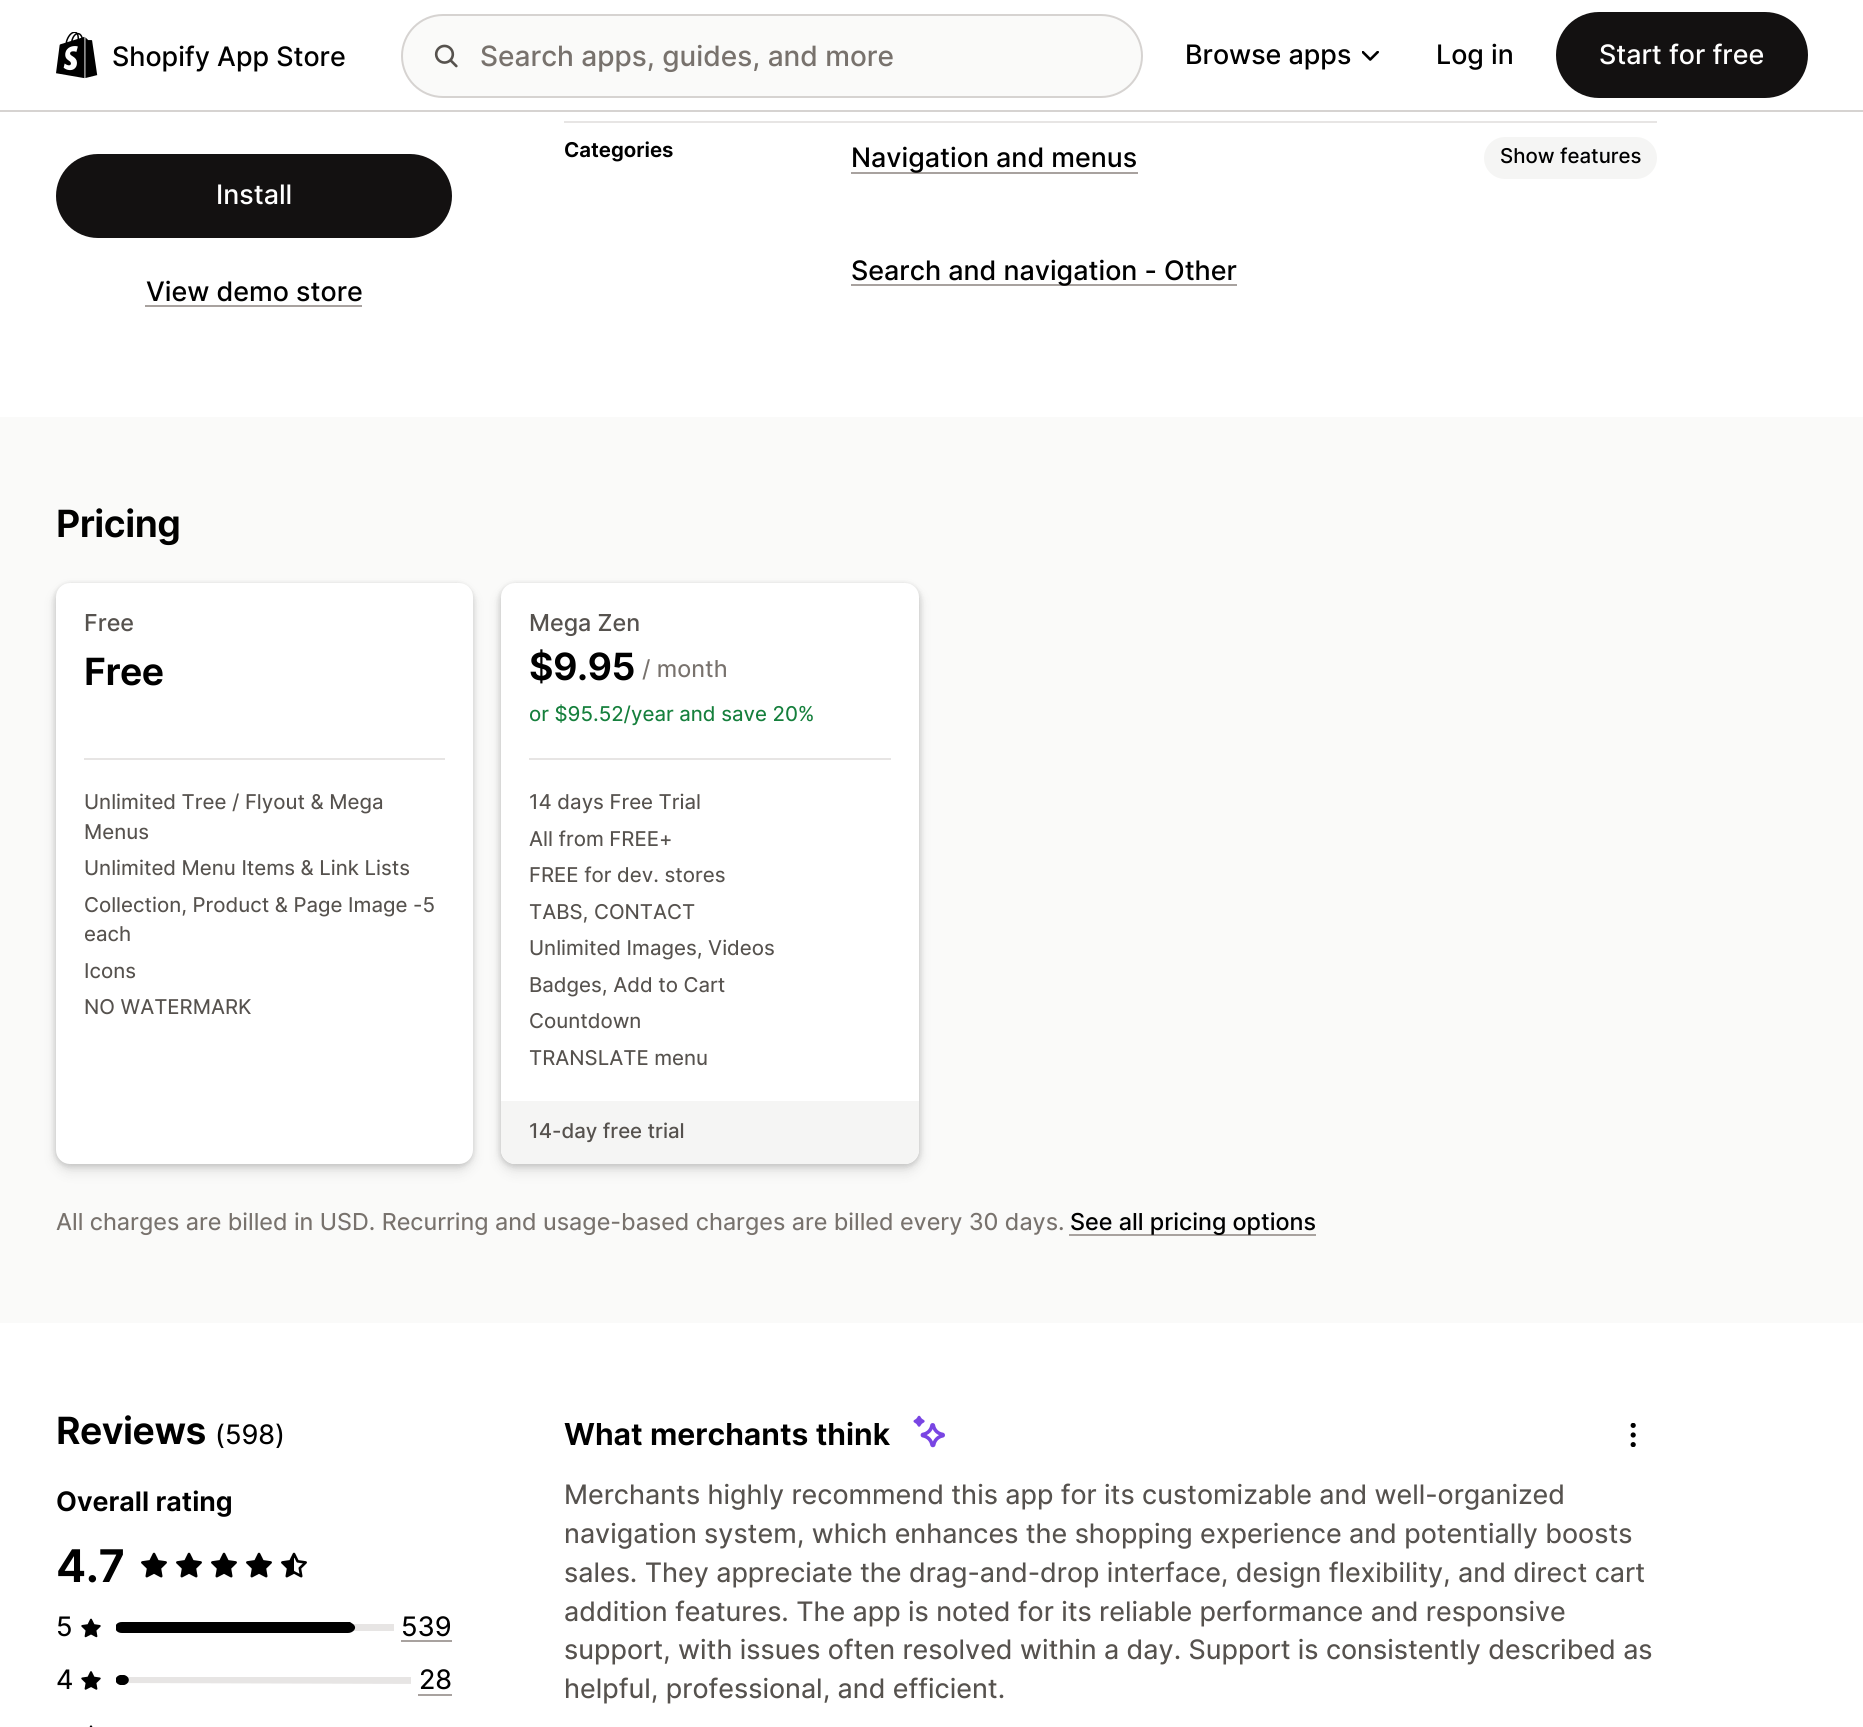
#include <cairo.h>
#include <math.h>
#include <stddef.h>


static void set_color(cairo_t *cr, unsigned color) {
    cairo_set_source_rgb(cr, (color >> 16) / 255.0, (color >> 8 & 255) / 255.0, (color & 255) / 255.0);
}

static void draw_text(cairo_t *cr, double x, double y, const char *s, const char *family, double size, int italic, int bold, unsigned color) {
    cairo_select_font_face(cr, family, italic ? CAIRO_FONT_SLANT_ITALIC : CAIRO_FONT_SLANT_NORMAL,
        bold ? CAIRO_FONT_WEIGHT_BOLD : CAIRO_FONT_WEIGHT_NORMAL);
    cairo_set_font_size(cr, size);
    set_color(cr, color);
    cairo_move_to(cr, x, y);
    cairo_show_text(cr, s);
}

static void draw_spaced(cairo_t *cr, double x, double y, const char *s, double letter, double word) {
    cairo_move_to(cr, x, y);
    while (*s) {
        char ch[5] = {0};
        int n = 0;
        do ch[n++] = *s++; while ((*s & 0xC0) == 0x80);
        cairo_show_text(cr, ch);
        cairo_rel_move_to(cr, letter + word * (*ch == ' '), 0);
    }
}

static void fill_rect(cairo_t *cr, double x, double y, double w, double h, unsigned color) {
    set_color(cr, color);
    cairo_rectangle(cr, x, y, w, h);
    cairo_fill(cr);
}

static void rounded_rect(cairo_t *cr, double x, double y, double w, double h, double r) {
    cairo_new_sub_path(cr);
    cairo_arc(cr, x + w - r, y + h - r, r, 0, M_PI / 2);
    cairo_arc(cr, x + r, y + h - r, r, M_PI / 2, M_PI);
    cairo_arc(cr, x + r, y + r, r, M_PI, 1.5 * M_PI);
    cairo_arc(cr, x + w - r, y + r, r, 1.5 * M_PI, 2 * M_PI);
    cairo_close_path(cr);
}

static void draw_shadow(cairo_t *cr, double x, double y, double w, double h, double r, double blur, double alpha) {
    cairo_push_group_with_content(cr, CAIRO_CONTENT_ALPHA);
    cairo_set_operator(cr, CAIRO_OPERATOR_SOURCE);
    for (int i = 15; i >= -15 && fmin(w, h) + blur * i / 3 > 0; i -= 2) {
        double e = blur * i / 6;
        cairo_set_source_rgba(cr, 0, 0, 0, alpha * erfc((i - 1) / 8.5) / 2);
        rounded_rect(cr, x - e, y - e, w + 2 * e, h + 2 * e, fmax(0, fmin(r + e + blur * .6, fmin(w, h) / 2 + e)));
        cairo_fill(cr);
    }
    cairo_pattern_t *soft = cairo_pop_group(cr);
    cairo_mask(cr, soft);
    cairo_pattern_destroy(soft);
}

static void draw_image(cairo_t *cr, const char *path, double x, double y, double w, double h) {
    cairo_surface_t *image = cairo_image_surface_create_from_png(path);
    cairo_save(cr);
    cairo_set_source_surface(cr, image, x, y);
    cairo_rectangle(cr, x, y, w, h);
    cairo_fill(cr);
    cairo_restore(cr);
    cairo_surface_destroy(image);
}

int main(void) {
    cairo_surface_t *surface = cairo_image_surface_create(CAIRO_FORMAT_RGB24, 1863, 1727);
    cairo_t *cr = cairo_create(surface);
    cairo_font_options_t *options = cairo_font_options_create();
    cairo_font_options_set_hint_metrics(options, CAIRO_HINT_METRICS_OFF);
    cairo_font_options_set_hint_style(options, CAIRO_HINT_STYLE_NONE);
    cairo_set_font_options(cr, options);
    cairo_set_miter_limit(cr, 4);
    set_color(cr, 0xFFFFFF);
    cairo_paint(cr);
    fill_rect(cr, 0, 110, 1863, 2, 0xD6D3D1);
    draw_image(cr, "assets/img1.png", 56, 32, 42, 47);
    draw_text(cr, 112, 66, "Shopify App Store", "Inter Medium", 26.85, 0, 0, 0x000000);
    set_color(cr, 0xFAFAF9);
    rounded_rect(cr, 402, 15, 740, 82, 41);
    cairo_fill_preserve(cr);
    set_color(cr, 0xD6D3D1);
    cairo_stroke(cr);
    draw_image(cr, "assets/img2.png", 434, 44, 24, 24);
    draw_text(cr, 480, 66, "Search apps, guides, and more", "Inter Medium", 28, 0, 0, 0x78726D);
    draw_text(cr, 1185, 64, "Browse apps", "Inter Medium", 26.85, 0, 0, 0x000000);
    draw_image(cr, "assets/img3.png", 1362, 51, 17, 10);
    draw_text(cr, 1436, 64, "Log in", "Inter Medium", 26.85, 0, 0, 0x000000);
    set_color(cr, 0x131111);
    rounded_rect(cr, 1556, 12, 252, 86, 43);
    cairo_fill(cr);
    draw_text(cr, 1599, 64, "Start for free", "Inter Medium", 26.85, 0, 0, 0xFFFFFF);
    set_color(cr, 0x131111);
    rounded_rect(cr, 56, 154, 396, 84, 42);
    cairo_fill(cr);
    draw_text(cr, 216, 204, "Install", "Inter Medium", 26.85, 0, 0, 0xFFFFFF);
    draw_text(cr, 146, 301, "View demo store", "Inter Medium", 26.85, 0, 0, 0x000000);
    fill_rect(cr, 145, 305, 217, 2, 0xA8A29F);
    fill_rect(cr, 564, 121, 1093, 2, 0xE7E5E4);
    draw_text(cr, 564, 157, "Categories", "Inter SemiBold", 20.4, 0, 0, 0x000000);
    fill_rect(cr, 851, 172, 287, 2, 0xA8A29F);
    draw_text(cr, 851, 167, "Navigation and menus", "Inter Medium", 26.85, 0, 0, 0x000000);
    set_color(cr, 0xF5F5F4);
    rounded_rect(cr, 1484, 137, 173, 42, 21);
    cairo_fill(cr);
    draw_text(cr, 1500, 163, "Show features", "Inter Medium", 20.4, 0, 0, 0x000000);
    fill_rect(cr, 851, 284, 386, 2, 0xA8A29F);
    draw_text(cr, 851, 280, "Search and navigation - Other", "Inter Medium", 26.85, 0, 0, 0x000000);
    fill_rect(cr, 0, 417, 1863, 906, 0xFAFAF9);
    cairo_select_font_face(cr, "Inter SemiBold", CAIRO_FONT_SLANT_NORMAL, CAIRO_FONT_WEIGHT_NORMAL);
    cairo_set_font_size(cr, 37.5);
    set_color(cr, 0x000000);
    draw_spaced(cr, 56, 537, "Pricing", -0.5, 0);
    set_color(cr, 0x000000);
    draw_shadow(cr, 54, 583, 420, 584, 16, 2, 0.07);
    draw_shadow(cr, 54, 585, 420, 584, 16, 3.5, 0.07);
    draw_shadow(cr, 54, 588, 420, 585, 16, 7, 0.07);
    set_color(cr, 0xFFFFFF);
    rounded_rect(cr, 56, 583, 417, 581, 14);
    cairo_fill(cr);
    draw_text(cr, 84, 631, "Free", "Inter Medium", 23.35, 0, 0, 0x56524E);
    cairo_select_font_face(cr, "Inter SemiBold", CAIRO_FONT_SLANT_NORMAL, CAIRO_FONT_WEIGHT_NORMAL);
    cairo_set_font_size(cr, 37.5);
    set_color(cr, 0x000000);
    draw_spaced(cr, 84, 685, "Free", -0.5, 0);
    fill_rect(cr, 84, 758, 361, 2, 0xE7E5E4);
    draw_text(cr, 84, 809, "Unlimited Tree / Flyout & Mega", "Inter", 20.4, 0, 0, 0x56524E);
    draw_text(cr, 84, 839, "Menus", "Inter", 20.4, 0, 0, 0x56524E);
    draw_text(cr, 84, 875, "Unlimited Menu Items & Link Lists", "Inter", 20.4, 0, 0, 0x56524E);
    draw_text(cr, 84, 912, "Collection, Product & Page Image -5", "Inter", 20.4, 0, 0, 0x56524E);
    draw_text(cr, 84, 941, "each", "Inter", 20.4, 0, 0, 0x56524E);
    draw_text(cr, 84, 978, "Icons", "Inter", 20.4, 0, 0, 0x56524E);
    draw_text(cr, 84, 1014, "NO WATERMARK", "Inter", 20.4, 0, 0, 0x56524E);
    set_color(cr, 0x000000);
    draw_shadow(cr, 499, 583, 422, 584, 16, 2, 0.07);
    draw_shadow(cr, 499, 585, 422, 584, 16, 3.5, 0.07);
    draw_shadow(cr, 499, 588, 422, 585, 16, 7, 0.07);
    set_color(cr, 0xFFFFFF);
    rounded_rect(cr, 501, 583, 418, 581, 14);
    cairo_fill(cr);
    draw_text(cr, 529, 631, "Mega Zen", "Inter Medium", 23.35, 0, 0, 0x56524E);
    cairo_select_font_face(cr, "Inter SemiBold", CAIRO_FONT_SLANT_NORMAL, CAIRO_FONT_WEIGHT_NORMAL);
    cairo_set_font_size(cr, 37.5);
    set_color(cr, 0x000000);
    draw_spaced(cr, 529, 680, "$9.95", -0.5, 0);
    draw_text(cr, 642, 677, "/ month", "Inter", 23.35, 0, 0, 0x78726D);
    draw_text(cr, 529, 721, "or $95.52/year and save 20%", "Inter", 20.4, 0, 0, 0x157F3C);
    fill_rect(cr, 529, 758, 362, 2, 0xE7E5E4);
    draw_text(cr, 529, 809, "14 days Free Trial", "Inter", 20.4, 0, 0, 0x56524E);
    draw_text(cr, 529, 846, "All from FREE+", "Inter", 20.4, 0, 0, 0x56524E);
    draw_text(cr, 529, 882, "FREE for dev. stores", "Inter", 20.4, 0, 0, 0x56524E);
    draw_text(cr, 529, 919, "TABS, CONTACT", "Inter", 20.4, 0, 0, 0x56524E);
    draw_text(cr, 529, 955, "Unlimited Images, Videos", "Inter", 20.4, 0, 0, 0x56524E);
    draw_text(cr, 529, 992, "Badges, Add to Cart", "Inter", 20.4, 0, 0, 0x56524E);
    draw_text(cr, 529, 1028, "Countdown", "Inter", 20.4, 0, 0, 0x56524E);
    draw_text(cr, 529, 1065, "TRANSLATE menu", "Inter", 20.4, 0, 0, 0x56524E);
    set_color(cr, 0xF5F5F4);
    cairo_new_path(cr);
    cairo_move_to(cr, 501, 1101);
    cairo_line_to(cr, 919, 1101);
    cairo_line_to(cr, 919, 1150);
    cairo_curve_to(cr, 919, 1157.5, 912.5, 1164, 905, 1164);
    cairo_line_to(cr, 515, 1164);
    cairo_curve_to(cr, 507.5, 1164, 501, 1157.5, 501, 1150);
    cairo_close_path(cr);
    cairo_fill(cr);
    draw_text(cr, 529, 1138, "14-day free trial", "Inter Medium", 20.4, 0, 0, 0x56524E);
    draw_text(cr, 56, 1230, "All charges are billed in USD. Recurring and usage-based charges are billed every 30 days.", "Inter", 23.35, 0, 0, 0x78726D);
    fill_rect(cr, 1069, 1234, 247, 2, 0xA8A29F);
    draw_text(cr, 1070, 1230, "See all pricing options", "Inter Medium", 23.35, 0, 0, 0x000000);
    cairo_select_font_face(cr, "Inter SemiBold", CAIRO_FONT_SLANT_NORMAL, CAIRO_FONT_WEIGHT_NORMAL);
    cairo_set_font_size(cr, 37.5);
    draw_spaced(cr, 56, 1444, "Reviews", -0.5, 0);
    draw_text(cr, 215, 1444, "(598)", "Inter", 26.85, 0, 0, 0x000000);
    draw_text(cr, 56, 1511, "Overall rating", "Inter SemiBold", 26.85, 0, 0, 0x000000);
    cairo_set_font_size(cr, 45);
    draw_spaced(cr, 56, 1582, "4.7", -0.5, 0);
    draw_image(cr, "assets/img4.png", 141, 1552, 26, 26);
    draw_image(cr, "assets/img4.png", 176, 1552, 26, 26);
    draw_image(cr, "assets/img4.png", 211, 1552, 26, 26);
    draw_image(cr, "assets/img4.png", 246, 1552, 26, 26);
    draw_image(cr, "assets/img5.png", 281, 1552, 26, 26);
    draw_text(cr, 56, 1636, "5", "Inter", 26.85, 0, 0, 0x000000);
    draw_image(cr, "assets/img6.png", 81, 1618, 20, 20);
    cairo_save(cr);
    cairo_rectangle(cr, 116, 1624, 322, 7);
    cairo_clip(cr);
    set_color(cr, 0xE7E5E4);
    cairo_new_path(cr);
    cairo_move_to(cr, 121, 1624);
    cairo_line_to(cr, 423, 1624);
    cairo_curve_to(cr, 425, 1624, 428, 1625, 428, 1628);
    cairo_curve_to(cr, 428, 1630, 425, 1631, 423, 1631);
    cairo_line_to(cr, 120, 1631);
    cairo_curve_to(cr, 113, 1630, 115, 1624, 121, 1624);
    cairo_close_path(cr);
    cairo_fill(cr);
    cairo_restore(cr);
    fill_rect(cr, 394, 1624, 34, 7, 0xFFFFFF);
    draw_text(cr, 401, 1636, "539", "Inter", 26.85, 0, 0, 0x000000);
    fill_rect(cr, 401, 1640, 51, 2, 0xA8A29F);
    cairo_save(cr);
    cairo_rectangle(cr, 116, 1622, 266, 11);
    cairo_clip(cr);
    set_color(cr, 0x000000);
    cairo_new_path(cr);
    cairo_move_to(cr, 122, 1622);
    cairo_line_to(cr, 350, 1622);
    cairo_line_to(cr, 353, 1624);
    cairo_curve_to(cr, 358, 1628, 353, 1633, 348, 1633);
    cairo_line_to(cr, 122, 1633);
    cairo_curve_to(cr, 113, 1633, 113, 1622, 122, 1622);
    cairo_close_path(cr);
    cairo_fill(cr);
    cairo_restore(cr);
    draw_text(cr, 56, 1689, "4", "Inter", 26.85, 0, 0, 0x000000);
    draw_image(cr, "assets/img7.png", 81, 1671, 20, 19);
    cairo_save(cr);
    cairo_rectangle(cr, 116, 1677, 322, 7);
    cairo_clip(cr);
    set_color(cr, 0xE7E5E4);
    cairo_new_path(cr);
    cairo_move_to(cr, 121, 1676);
    cairo_line_to(cr, 423, 1676);
    cairo_curve_to(cr, 425, 1677, 428, 1677, 428, 1680);
    cairo_curve_to(cr, 428, 1683, 425, 1683, 423, 1684);
    cairo_line_to(cr, 120, 1683);
    cairo_curve_to(cr, 113, 1683, 115, 1676, 121, 1676);
    cairo_close_path(cr);
    cairo_fill(cr);
    cairo_restore(cr);
    draw_image(cr, "assets/img8.png", 116, 1675, 13, 10);
    fill_rect(cr, 411, 1677, 17, 7, 0xFFFFFF);
    draw_text(cr, 419, 1689, "28", "Inter", 26.85, 0, 0, 0x000000);
    fill_rect(cr, 418, 1694, 34, 2, 0xA8A29F);
    draw_image(cr, "assets/img9.png", 89, 1725, 4, 2);
    draw_text(cr, 564, 1445, "What merchants think", "Inter SemiBold", 30.25, 0, 0, 0x000000);
    draw_image(cr, "assets/img10.png", 913, 1415, 32, 33);
    draw_image(cr, "assets/img11.png", 1630, 1423, 6, 24);
    draw_text(cr, 564, 1504, "Merchants highly recommend this app for its customizable and well-organized", "Inter", 26.85, 0, 0, 0x56524E);
    draw_text(cr, 564, 1543, "navigation system, which enhances the shopping experience and potentially boosts", "Inter", 26.85, 0, 0, 0x56524E);
    draw_text(cr, 564, 1582, "sales. They appreciate the drag-and-drop interface, design flexibility, and direct cart", "Inter", 26.85, 0, 0, 0x56524E);
    draw_text(cr, 564, 1621, "addition features. The app is noted for its reliable performance and responsive", "Inter", 26.85, 0, 0, 0x56524E);
    draw_text(cr, 564, 1659, "support, with issues often resolved within a day. Support is consistently described as", "Inter", 26.85, 0, 0, 0x56524E);
    draw_text(cr, 564, 1698, "helpful, professional, and efficient.", "Inter", 26.85, 0, 0, 0x56524E);
    cairo_surface_write_to_png(surface, "output.png");
    cairo_font_options_destroy(options);
    cairo_destroy(cr);
    cairo_surface_destroy(surface);
    return 0;
}
